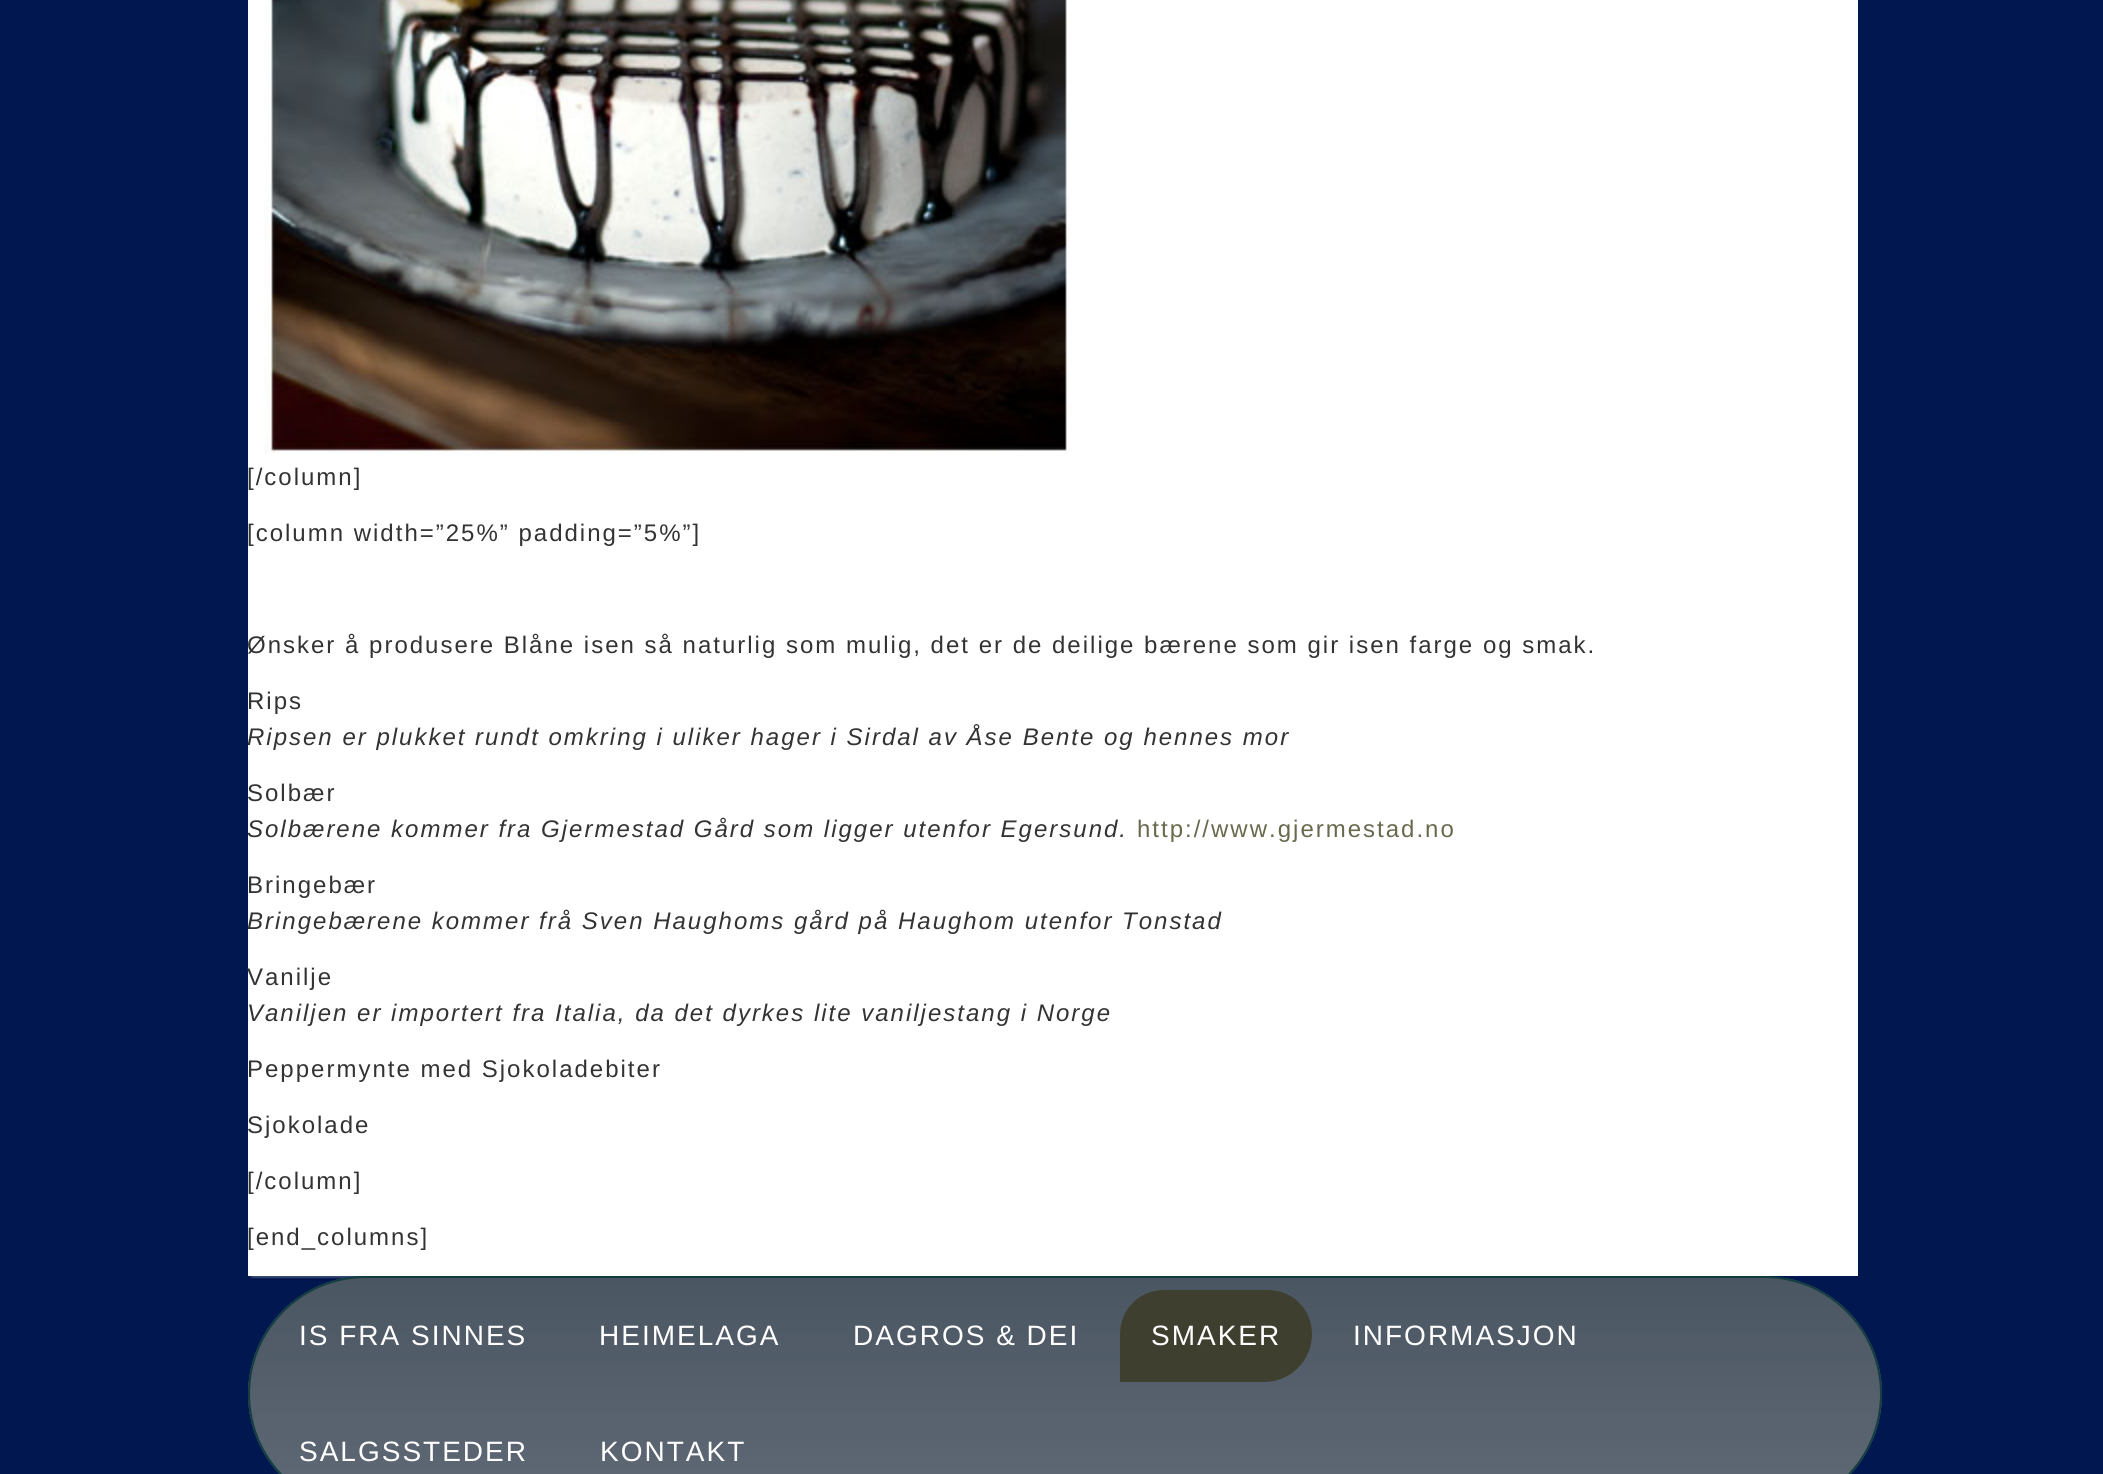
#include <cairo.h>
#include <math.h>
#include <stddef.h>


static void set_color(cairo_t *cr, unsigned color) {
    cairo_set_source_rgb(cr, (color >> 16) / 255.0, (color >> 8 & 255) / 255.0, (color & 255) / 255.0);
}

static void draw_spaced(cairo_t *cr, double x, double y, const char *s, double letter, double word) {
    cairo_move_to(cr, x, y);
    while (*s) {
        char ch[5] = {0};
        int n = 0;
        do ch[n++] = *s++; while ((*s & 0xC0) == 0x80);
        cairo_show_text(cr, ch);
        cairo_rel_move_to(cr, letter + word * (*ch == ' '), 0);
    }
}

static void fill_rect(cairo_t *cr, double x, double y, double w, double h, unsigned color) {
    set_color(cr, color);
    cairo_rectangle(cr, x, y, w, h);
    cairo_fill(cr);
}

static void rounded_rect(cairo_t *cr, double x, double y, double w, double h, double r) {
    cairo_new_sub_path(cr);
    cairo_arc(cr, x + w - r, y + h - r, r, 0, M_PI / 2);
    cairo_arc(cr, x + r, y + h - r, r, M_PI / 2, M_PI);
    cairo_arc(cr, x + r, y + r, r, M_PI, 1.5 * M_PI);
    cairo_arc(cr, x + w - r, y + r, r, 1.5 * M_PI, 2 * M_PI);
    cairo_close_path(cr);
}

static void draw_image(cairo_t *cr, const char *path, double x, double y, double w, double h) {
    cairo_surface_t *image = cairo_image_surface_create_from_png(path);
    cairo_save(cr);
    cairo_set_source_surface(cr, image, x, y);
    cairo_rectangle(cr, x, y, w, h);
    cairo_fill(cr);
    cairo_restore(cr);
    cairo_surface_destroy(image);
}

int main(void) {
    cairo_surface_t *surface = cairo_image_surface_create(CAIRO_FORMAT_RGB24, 2103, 1474);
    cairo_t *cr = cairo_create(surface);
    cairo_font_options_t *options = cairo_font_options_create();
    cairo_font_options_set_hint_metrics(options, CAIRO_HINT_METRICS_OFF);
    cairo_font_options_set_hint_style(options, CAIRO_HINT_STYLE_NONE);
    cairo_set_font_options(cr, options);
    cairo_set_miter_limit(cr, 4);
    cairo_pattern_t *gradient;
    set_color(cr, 0x00184F);
    cairo_paint(cr);
    fill_rect(cr, 248, 0, 1610, 1276, 0xFFFFFF);
    draw_image(cr, "assets/img1.png", 248, 0, 822, 460);
    cairo_select_font_face(cr, "Liberation Sans", CAIRO_FONT_SLANT_NORMAL, CAIRO_FONT_WEIGHT_NORMAL);
    cairo_set_font_size(cr, 24);
    set_color(cr, 0x333333);
    draw_spaced(cr, 247, 485, "[/column]", 2, 0);
    draw_spaced(cr, 247, 541, "[column width=”25%” padding=”5%”]", 2, 0);
    draw_spaced(cr, 247, 653, "Ønsker å produsere Blåne isen så naturlig som mulig, det er de deilige bærene som gir isen farge og smak.", 2, 0);
    draw_spaced(cr, 247, 709, "Rips", 2, 0);
    cairo_select_font_face(cr, "Liberation Sans", CAIRO_FONT_SLANT_ITALIC, CAIRO_FONT_WEIGHT_NORMAL);
    draw_spaced(cr, 247, 745, "Ripsen er plukket rundt omkring i uliker hager i Sirdal av Åse Bente og hennes mor", 2, 0);
    cairo_select_font_face(cr, "Liberation Sans", CAIRO_FONT_SLANT_NORMAL, CAIRO_FONT_WEIGHT_NORMAL);
    draw_spaced(cr, 247, 801, "Solbær", 2, 0);
    cairo_select_font_face(cr, "Liberation Sans", CAIRO_FONT_SLANT_ITALIC, CAIRO_FONT_WEIGHT_NORMAL);
    draw_spaced(cr, 247, 837, "Solbærene kommer fra Gjermestad Gård som ligger utenfor Egersund.", 2, 0);
    cairo_select_font_face(cr, "Liberation Sans", CAIRO_FONT_SLANT_NORMAL, CAIRO_FONT_WEIGHT_NORMAL);
    set_color(cr, 0x69694E);
    draw_spaced(cr, 1137, 837, "http://www.gjermestad.no", 2, 0);
    set_color(cr, 0x333333);
    draw_spaced(cr, 247, 893, "Bringebær", 2, 0);
    cairo_select_font_face(cr, "Liberation Sans", CAIRO_FONT_SLANT_ITALIC, CAIRO_FONT_WEIGHT_NORMAL);
    draw_spaced(cr, 247, 929, "Bringebærene kommer frå Sven Haughoms gård på Haughom utenfor Tonstad", 2, 0);
    cairo_select_font_face(cr, "Liberation Sans", CAIRO_FONT_SLANT_NORMAL, CAIRO_FONT_WEIGHT_NORMAL);
    draw_spaced(cr, 247, 985, "Vanilje", 2, 0);
    cairo_select_font_face(cr, "Liberation Sans", CAIRO_FONT_SLANT_ITALIC, CAIRO_FONT_WEIGHT_NORMAL);
    draw_spaced(cr, 247, 1021, "Vaniljen er importert fra Italia, da det dyrkes lite vaniljestang i Norge", 2, 0);
    cairo_select_font_face(cr, "Liberation Sans", CAIRO_FONT_SLANT_NORMAL, CAIRO_FONT_WEIGHT_NORMAL);
    draw_spaced(cr, 247, 1077, "Peppermynte med Sjokoladebiter", 2, 0);
    draw_spaced(cr, 247, 1133, "Sjokolade", 2, 0);
    draw_spaced(cr, 247, 1189, "[/column]", 2, 0);
    draw_spaced(cr, 247, 1245, "[end_columns]", 2, 0);
    draw_image(cr, "assets/img2.png", 249, 1276, 116, 57);
    cairo_save(cr);
    rounded_rect(cr, 248, 1276, 1634, 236, 118);
    cairo_clip(cr);
    gradient = cairo_pattern_create_linear(1065, 1278, 1065, 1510);
    cairo_pattern_add_color_stop_rgba(gradient, 0, 0.29, 0.337, 0.384, 1);
    cairo_pattern_add_color_stop_rgba(gradient, 1, 0.376, 0.416, 0.463, 1);
    cairo_set_source(cr, gradient);
    cairo_pattern_destroy(gradient);
    cairo_rectangle(cr, 248, 1278, 1634, 196);
    cairo_fill(cr);
    cairo_restore(cr);
    rounded_rect(cr, 249, 1277, 1632, 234, 117);
    set_color(cr, 0x133E40);
    cairo_stroke(cr);
    cairo_set_font_size(cr, 28);
    set_color(cr, 0xFFFFFF);
    draw_spaced(cr, 299, 1345, "IS FRA SINNES", 2, 0);
    draw_spaced(cr, 599, 1345, "HEIMELAGA", 2, 0);
    draw_spaced(cr, 853, 1345, "DAGROS & DEI", 2, 0);
    set_color(cr, 0x3F3F30);
    cairo_new_path(cr);
    cairo_move_to(cr, 1164, 1290);
    cairo_line_to(cr, 1268, 1290);
    cairo_curve_to(cr, 1292.5, 1290, 1312, 1309.5, 1312, 1334);
    cairo_curve_to(cr, 1312, 1360.5, 1290.5, 1382, 1264, 1382);
    cairo_line_to(cr, 1120, 1382);
    cairo_line_to(cr, 1120, 1334);
    cairo_curve_to(cr, 1120, 1309.5, 1139.5, 1290, 1164, 1290);
    cairo_close_path(cr);
    cairo_fill(cr);
    set_color(cr, 0xFFFFFF);
    draw_spaced(cr, 1151, 1345, "SMAKER", 2, 0);
    draw_spaced(cr, 1353, 1345, "INFORMASJON", 2, 0);
    draw_spaced(cr, 299, 1461, "SALGSSTEDER", 2, 0);
    draw_spaced(cr, 600, 1461, "KONTAKT", 2, 0);
    cairo_surface_write_to_png(surface, "output.png");
    cairo_font_options_destroy(options);
    cairo_destroy(cr);
    cairo_surface_destroy(surface);
    return 0;
}
